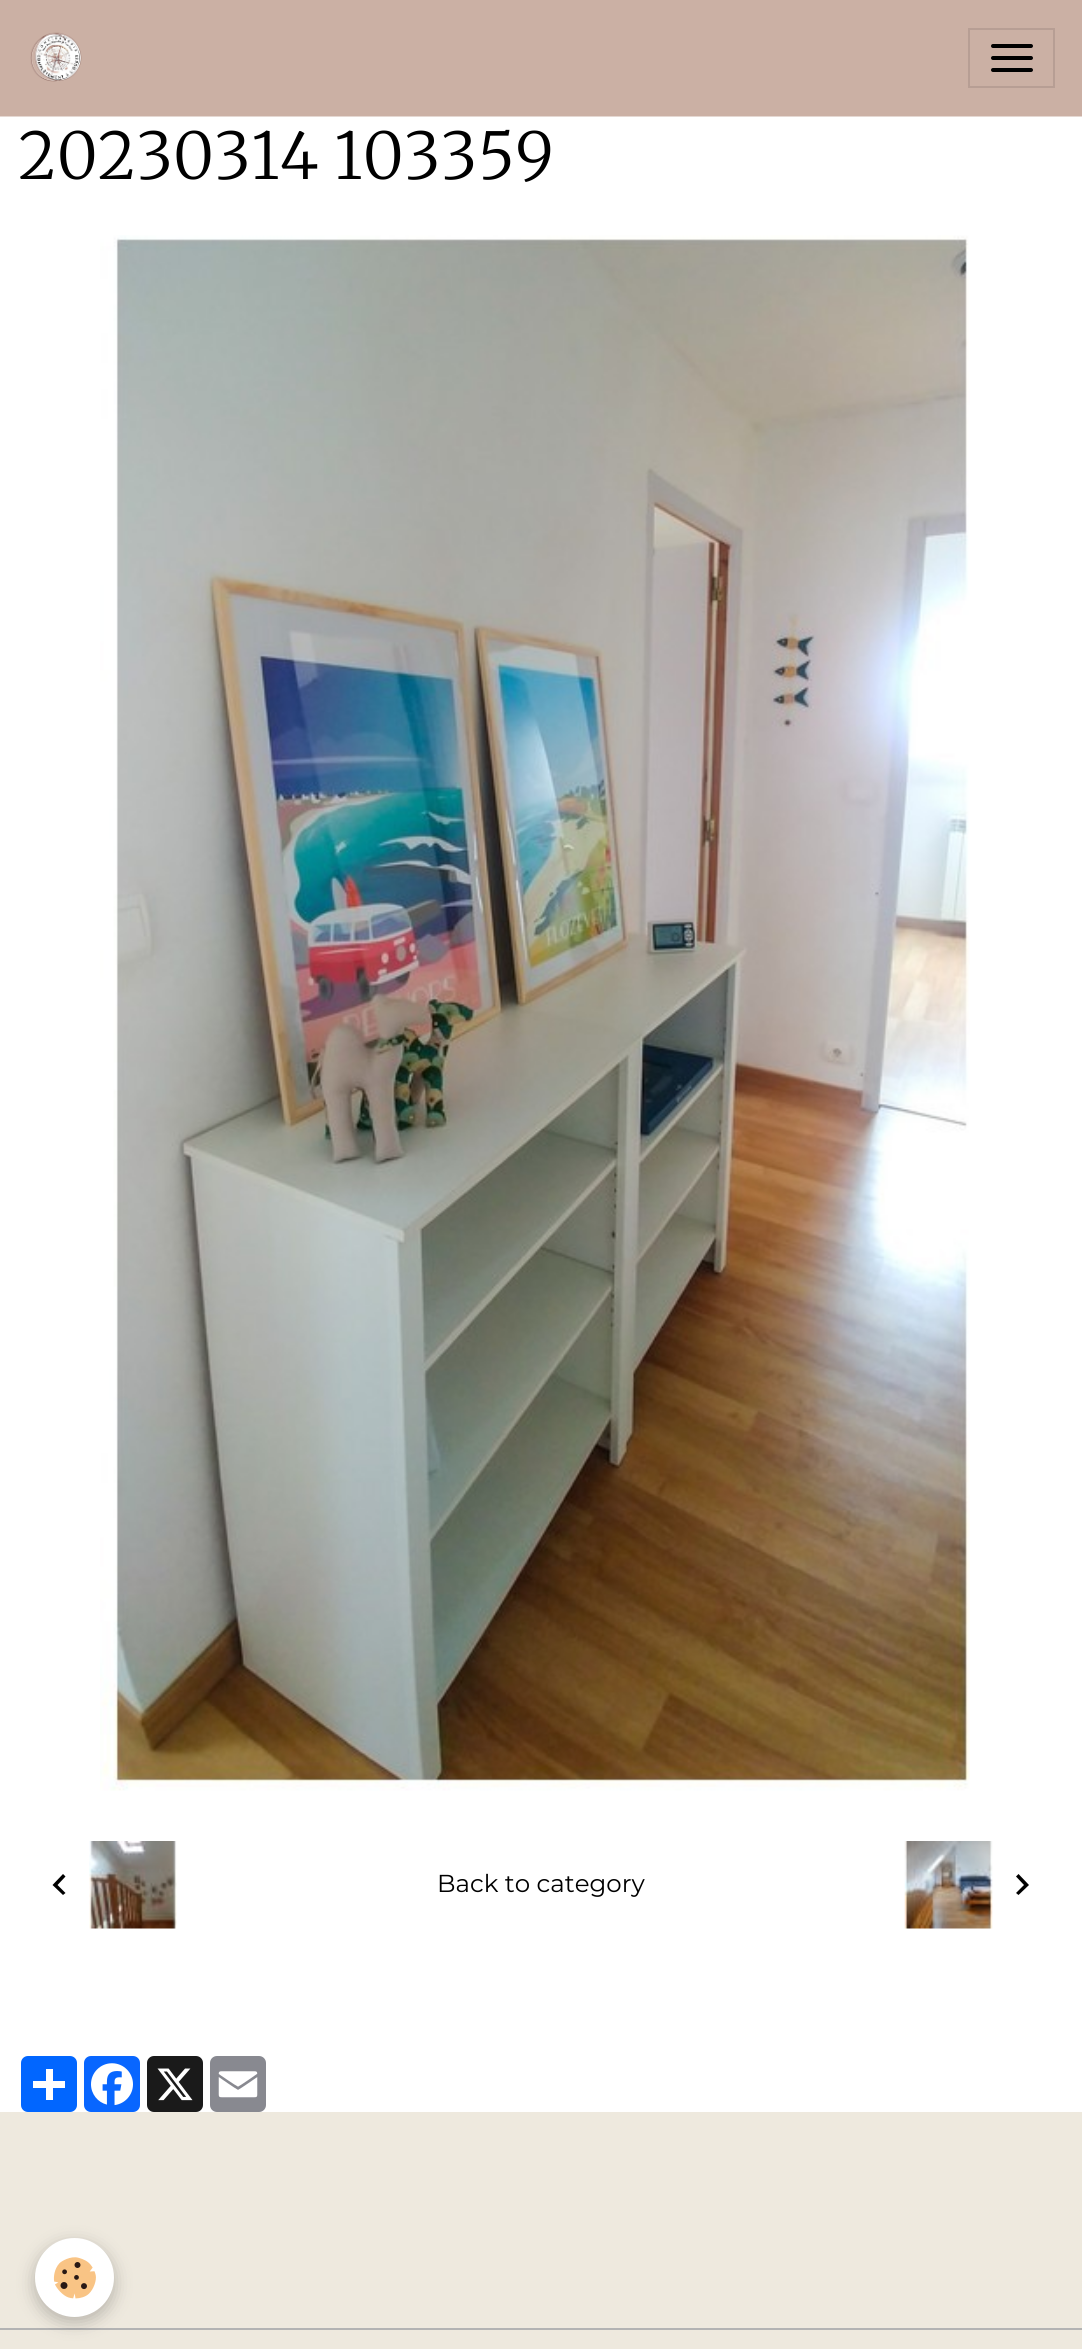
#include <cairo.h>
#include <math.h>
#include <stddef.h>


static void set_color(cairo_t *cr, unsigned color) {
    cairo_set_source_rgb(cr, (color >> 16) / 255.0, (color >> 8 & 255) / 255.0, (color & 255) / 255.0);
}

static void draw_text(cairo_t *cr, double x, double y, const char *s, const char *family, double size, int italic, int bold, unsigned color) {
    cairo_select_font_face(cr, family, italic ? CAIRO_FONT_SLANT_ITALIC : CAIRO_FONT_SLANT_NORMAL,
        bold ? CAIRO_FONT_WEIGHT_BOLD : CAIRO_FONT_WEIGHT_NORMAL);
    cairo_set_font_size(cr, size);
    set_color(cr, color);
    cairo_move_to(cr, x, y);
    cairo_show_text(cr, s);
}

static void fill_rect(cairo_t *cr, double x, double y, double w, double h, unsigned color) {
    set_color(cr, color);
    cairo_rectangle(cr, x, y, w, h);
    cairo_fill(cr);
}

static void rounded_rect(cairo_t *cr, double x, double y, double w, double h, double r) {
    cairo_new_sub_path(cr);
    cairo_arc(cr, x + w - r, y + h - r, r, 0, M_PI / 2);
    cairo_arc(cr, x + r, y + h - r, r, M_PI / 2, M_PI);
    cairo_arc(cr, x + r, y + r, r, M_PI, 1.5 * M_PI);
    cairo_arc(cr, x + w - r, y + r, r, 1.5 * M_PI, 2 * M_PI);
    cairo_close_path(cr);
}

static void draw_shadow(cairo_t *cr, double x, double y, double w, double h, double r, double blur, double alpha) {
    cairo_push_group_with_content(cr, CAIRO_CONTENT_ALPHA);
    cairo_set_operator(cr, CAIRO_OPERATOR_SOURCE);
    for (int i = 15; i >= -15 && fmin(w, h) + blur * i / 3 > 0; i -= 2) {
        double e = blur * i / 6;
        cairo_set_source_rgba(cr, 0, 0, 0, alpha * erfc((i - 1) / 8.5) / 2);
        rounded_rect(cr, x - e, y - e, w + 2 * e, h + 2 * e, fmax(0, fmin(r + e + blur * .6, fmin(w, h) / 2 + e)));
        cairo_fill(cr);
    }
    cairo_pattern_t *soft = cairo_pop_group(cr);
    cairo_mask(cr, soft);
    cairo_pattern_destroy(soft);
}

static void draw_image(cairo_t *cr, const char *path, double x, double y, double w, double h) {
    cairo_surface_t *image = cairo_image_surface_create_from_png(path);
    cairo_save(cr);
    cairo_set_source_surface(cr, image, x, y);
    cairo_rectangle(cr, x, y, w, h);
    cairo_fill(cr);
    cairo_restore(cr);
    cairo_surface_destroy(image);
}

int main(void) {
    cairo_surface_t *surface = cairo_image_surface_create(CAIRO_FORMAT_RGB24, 1082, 2349);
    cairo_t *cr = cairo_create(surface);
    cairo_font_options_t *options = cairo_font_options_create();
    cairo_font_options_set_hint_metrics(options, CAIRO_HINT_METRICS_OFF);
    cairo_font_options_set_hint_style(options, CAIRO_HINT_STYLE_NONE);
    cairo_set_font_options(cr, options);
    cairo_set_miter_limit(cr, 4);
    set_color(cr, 0xFFFFFF);
    cairo_paint(cr);
    fill_rect(cr, 0, 0, 1082, 116, 0xCBB0A4);
    fill_rect(cr, 0, 116, 1082, 1, 0xE5D8D2);
    draw_image(cr, "assets/img1.png", 30, 32, 52, 50);
    cairo_rectangle(cr, 969, 29, 85, 58);
    set_color(cr, 0xB79E94);
    cairo_stroke(cr);
    set_color(cr, 0x000000);
    rounded_rect(cr, 991, 44, 42, 4, 2);
    cairo_fill(cr);
    rounded_rect(cr, 991, 56, 42, 4, 2);
    cairo_fill(cr);
    rounded_rect(cr, 991, 68, 42, 4, 2);
    cairo_fill(cr);
    draw_text(cr, 18, 179, "20230314 103359", "Merriweather Light", 64.5, 0, 0, 0x000000);
    draw_image(cr, "assets/img2.png", 100, 235, 870, 1556);
    cairo_new_path(cr);
    cairo_move_to(cr, 65.5, 1876.5);
    cairo_line_to(cr, 57.5, 1885);
    cairo_line_to(cr, 65.5, 1893);
    cairo_line_to(cr, 63, 1895);
    cairo_line_to(cr, 52.5, 1885);
    cairo_line_to(cr, 63, 1874);
    cairo_close_path(cr);
    cairo_fill(cr);
    draw_image(cr, "assets/img3.png", 89, 1841, 88, 88);
    draw_text(cr, 437, 1892, "Back to category", "Montserrat", 24.5, 0, 0, 0x000000);
    draw_image(cr, "assets/img4.png", 904, 1841, 89, 88);
    cairo_new_path(cr);
    cairo_move_to(cr, 1018.5, 1874);
    cairo_line_to(cr, 1029, 1885);
    cairo_line_to(cr, 1018.5, 1895);
    cairo_line_to(cr, 1016, 1893);
    cairo_line_to(cr, 1024, 1885);
    cairo_line_to(cr, 1016, 1876.5);
    cairo_close_path(cr);
    cairo_fill(cr);
    set_color(cr, 0x0166FF);
    rounded_rect(cr, 21, 2056, 56, 56, 7);
    cairo_fill(cr);
    fill_rect(cr, 46, 2069, 7, 31, 0xFFFFFF);
    fill_rect(cr, 33, 2081, 32, 7, 0xFFFFFF);
    set_color(cr, 0x0866FF);
    rounded_rect(cr, 84, 2056, 56, 56, 7);
    cairo_fill(cr);
    draw_image(cr, "assets/img5.png", 91, 2063, 42, 43);
    set_color(cr, 0x1A1A1A);
    rounded_rect(cr, 147, 2056, 56, 56, 7);
    cairo_fill(cr);
    draw_image(cr, "assets/img6.png", 157, 2068, 36, 33);
    set_color(cr, 0x888990);
    rounded_rect(cr, 210, 2056, 56, 56, 7);
    cairo_fill(cr);
    draw_image(cr, "assets/img7.png", 218, 2071, 40, 27);
    fill_rect(cr, 0, 2112, 1082, 237, 0xEEE9DE);
    fill_rect(cr, 0, 2328, 1082, 2, 0xB3B3B3);
    set_color(cr, 0x000000);
    draw_shadow(cr, 35, 2244, 79, 78, 39, 9, 0.24);
    set_color(cr, 0xFFFFFF);
    cairo_arc(cr, 74.5, 2277.5, 39.5, 0, 2 * M_PI);
    cairo_fill(cr);
    draw_image(cr, "assets/img8.png", 53, 2257, 43, 42);
    cairo_surface_write_to_png(surface, "output.png");
    cairo_font_options_destroy(options);
    cairo_destroy(cr);
    cairo_surface_destroy(surface);
    return 0;
}
